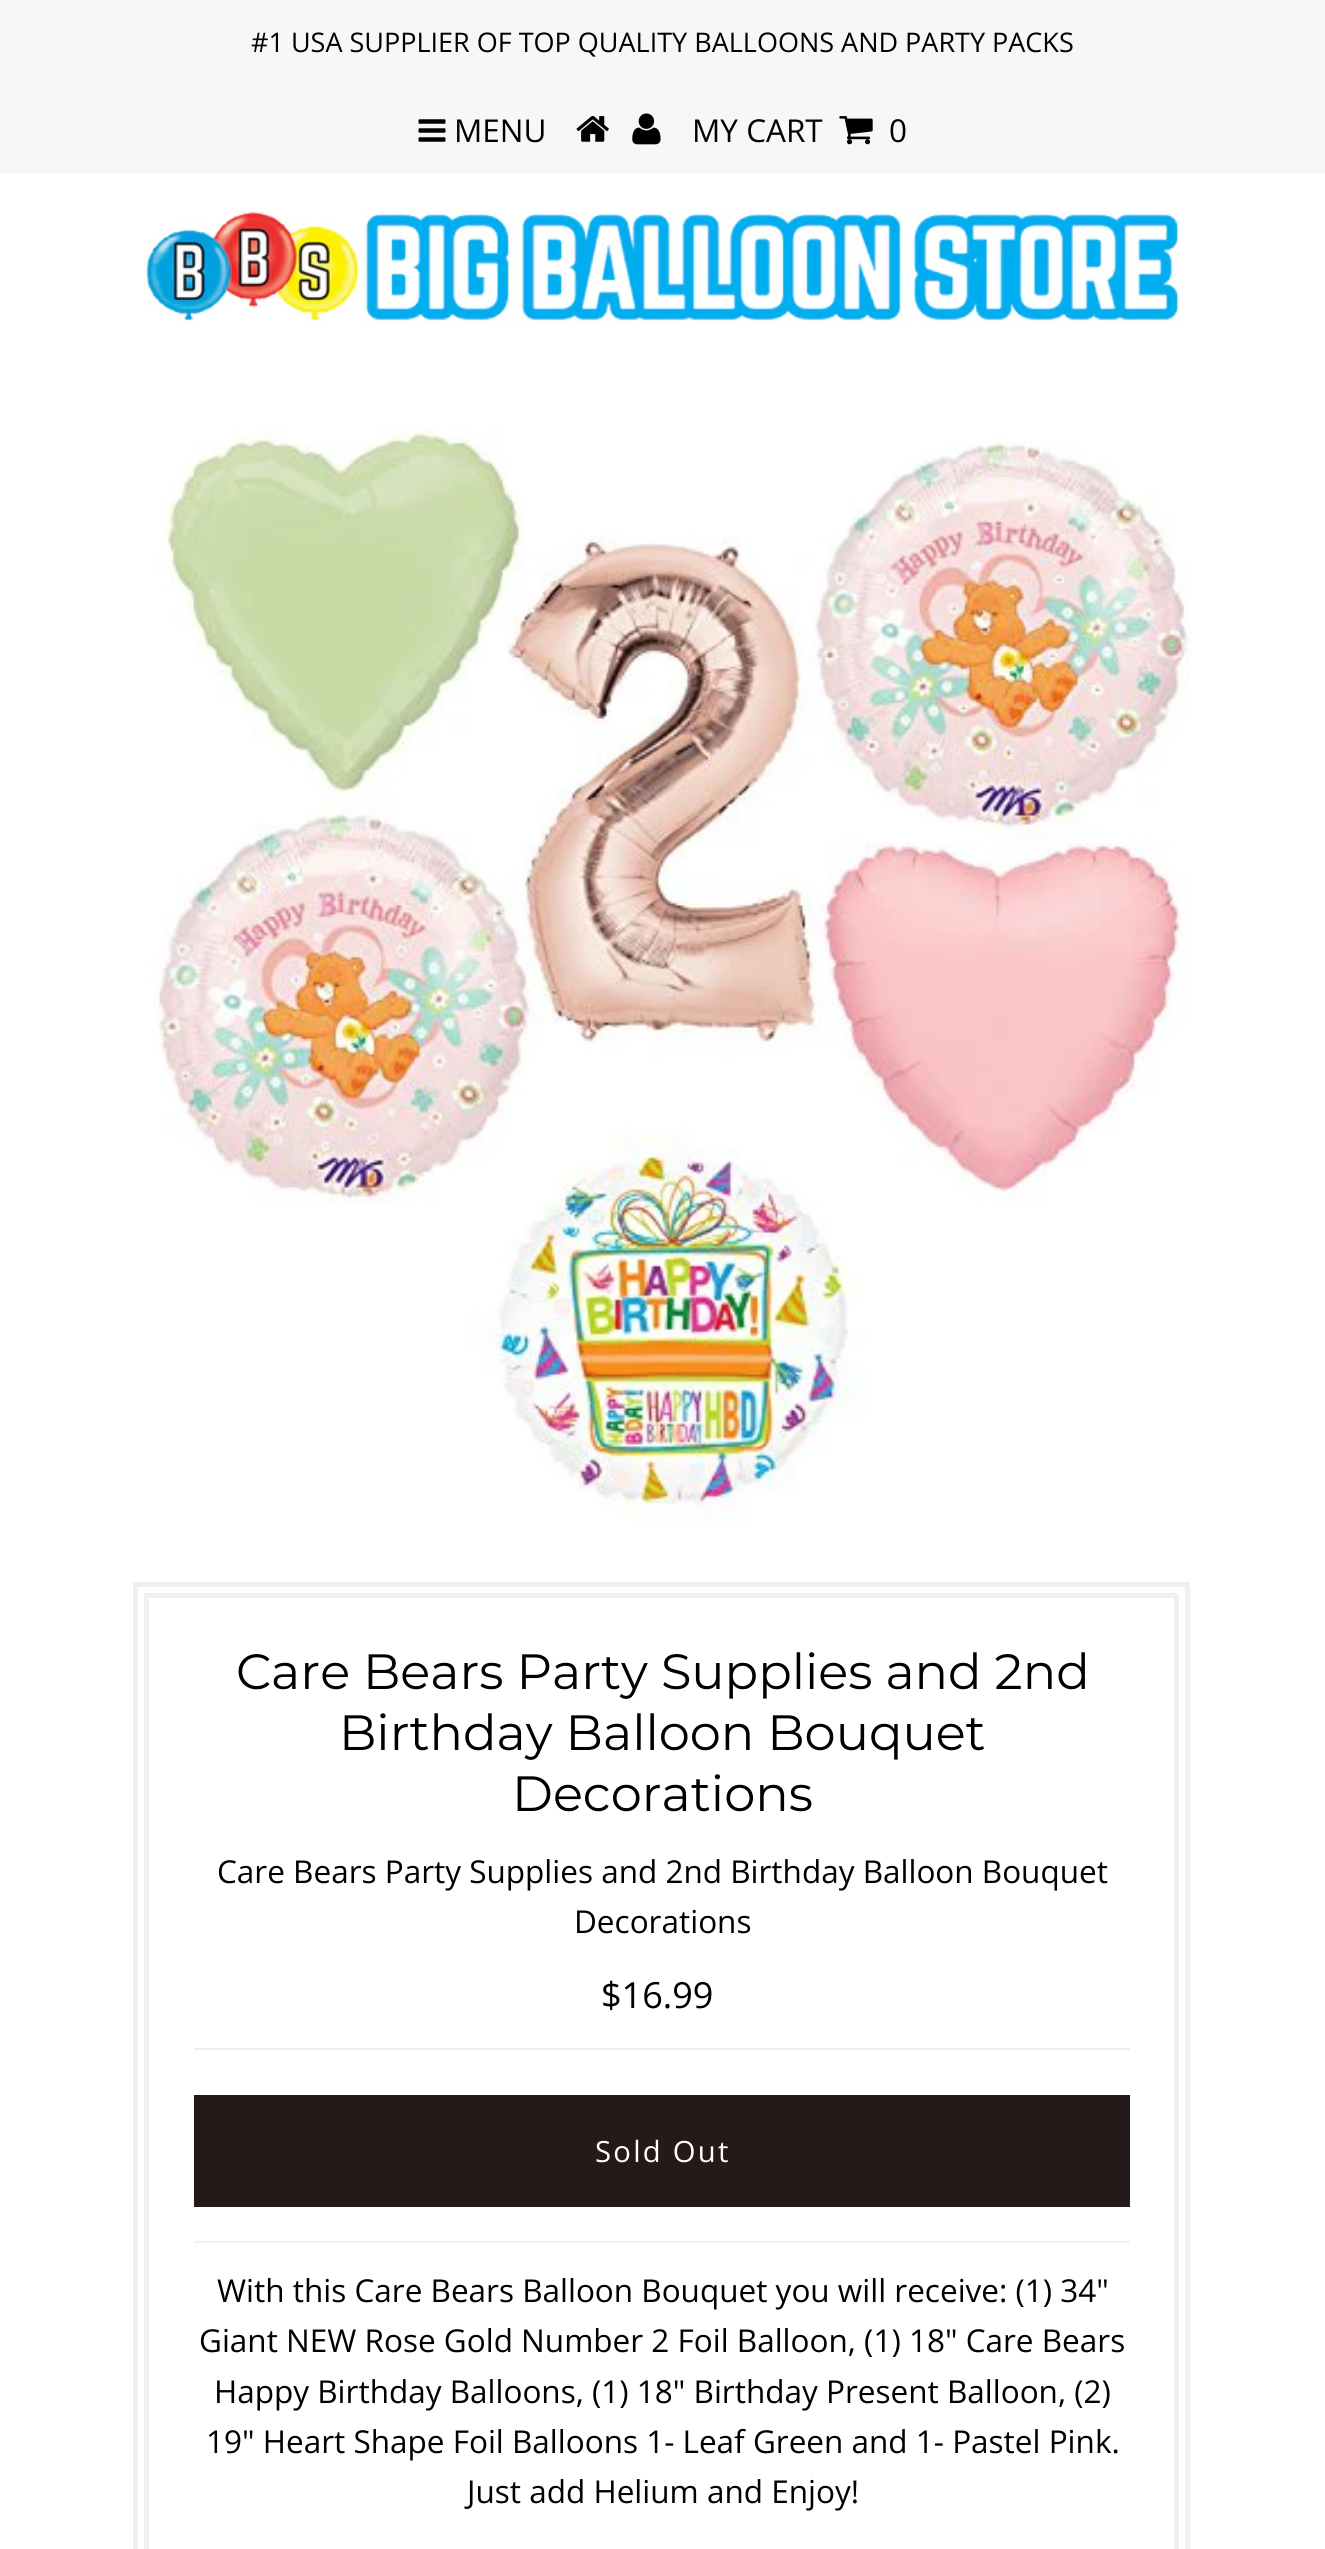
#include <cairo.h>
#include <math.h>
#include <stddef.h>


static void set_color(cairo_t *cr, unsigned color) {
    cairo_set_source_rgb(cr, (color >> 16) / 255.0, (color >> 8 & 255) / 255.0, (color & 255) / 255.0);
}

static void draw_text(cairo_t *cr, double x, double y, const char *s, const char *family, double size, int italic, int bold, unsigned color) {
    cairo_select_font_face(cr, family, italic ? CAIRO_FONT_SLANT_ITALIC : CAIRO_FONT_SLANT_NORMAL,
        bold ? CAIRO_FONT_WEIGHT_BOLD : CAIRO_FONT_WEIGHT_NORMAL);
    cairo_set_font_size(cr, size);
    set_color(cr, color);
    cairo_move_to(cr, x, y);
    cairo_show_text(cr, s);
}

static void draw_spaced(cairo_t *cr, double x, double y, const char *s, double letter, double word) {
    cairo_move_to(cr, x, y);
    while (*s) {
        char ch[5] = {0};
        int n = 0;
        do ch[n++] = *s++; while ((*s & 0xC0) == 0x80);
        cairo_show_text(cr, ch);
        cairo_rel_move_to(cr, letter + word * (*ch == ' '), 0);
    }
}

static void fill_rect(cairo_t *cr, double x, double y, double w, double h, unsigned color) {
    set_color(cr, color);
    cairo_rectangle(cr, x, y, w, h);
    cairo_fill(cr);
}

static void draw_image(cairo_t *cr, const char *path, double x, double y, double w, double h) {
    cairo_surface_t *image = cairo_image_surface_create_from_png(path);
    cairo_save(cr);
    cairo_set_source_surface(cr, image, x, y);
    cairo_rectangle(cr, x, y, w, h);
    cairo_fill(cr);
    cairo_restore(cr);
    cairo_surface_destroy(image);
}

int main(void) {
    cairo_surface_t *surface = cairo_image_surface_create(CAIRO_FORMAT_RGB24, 1325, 2549);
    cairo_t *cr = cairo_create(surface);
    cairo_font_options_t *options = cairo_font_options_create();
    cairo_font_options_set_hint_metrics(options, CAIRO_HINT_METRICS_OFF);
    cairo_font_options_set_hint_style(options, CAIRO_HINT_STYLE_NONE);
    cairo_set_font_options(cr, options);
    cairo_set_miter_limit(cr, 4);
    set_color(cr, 0xFFFFFF);
    cairo_paint(cr);
    fill_rect(cr, 0, 0, 1325, 173, 0xF7F7F7);
    draw_text(cr, 251, 52, "#1 USA SUPPLIER OF TOP QUALITY BALLOONS AND PARTY PACKS", "Open Sans", 27, 0, 0, 0x000000);
    draw_image(cr, "assets/img1.png", 418, 119, 28, 23);
    draw_text(cr, 454, 142, "MENU", "Open Sans", 31.5, 0, 0, 0x000000);
    draw_image(cr, "assets/img2.png", 576, 116, 33, 26);
    draw_image(cr, "assets/img3.png", 632, 113, 29, 32);
    draw_text(cr, 692, 142, "MY CART", "Open Sans", 31.5, 0, 0, 0x000000);
    draw_image(cr, "assets/img4.png", 839, 116, 34, 29);
    draw_text(cr, 889, 142, "0", "Open Sans", 31.5, 0, 0, 0x000000);
    draw_image(cr, "assets/img5.png", 144, 211, 1036, 117);
    draw_image(cr, "assets/img6.png", 150, 430, 1041, 1097);
    cairo_rectangle(cr, 135.5, 1584.5, 1052, 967);
    set_color(cr, 0xF0F0F0);
    cairo_set_line_width(cr, 5);
    cairo_stroke(cr);
    cairo_rectangle(cr, 146.5, 1595.5, 1030, 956);
    cairo_stroke(cr);
    draw_text(cr, 236, 1689, "Care Bears Party Supplies and 2nd", "Montserrat", 49.5, 0, 0, 0x000000);
    draw_text(cr, 339, 1750, "Birthday Balloon Bouquet", "Montserrat", 49.5, 0, 0, 0x000000);
    draw_text(cr, 512, 1811, "Decorations", "Montserrat", 49.5, 0, 0, 0x000000);
    draw_text(cr, 217, 1883, "Care Bears Party Supplies and 2nd Birthday Balloon Bouquet", "Open Sans", 31.5, 0, 0, 0x000000);
    draw_text(cr, 574, 1933, "Decorations", "Open Sans", 31.5, 0, 0, 0x000000);
    fill_rect(cr, 194, 2241, 936, 2, 0xF0F0F0);
    fill_rect(cr, 194, 2048, 936, 2, 0xF0F0F0);
    draw_text(cr, 601, 2008, "$16.99", "Open Sans", 36, 0, 0, 0x000000);
    fill_rect(cr, 194, 2095, 936, 112, 0x261919);
    cairo_set_font_size(cr, 29.25);
    set_color(cr, 0xFFFFFF);
    draw_spaced(cr, 595, 2162, "Sold Out", 2.25, 0);
    draw_text(cr, 217, 2302, "With this Care Bears Balloon Bouquet you will receive: (1) 34\"", "Open Sans", 31.5, 0, 0, 0x000000);
    draw_text(cr, 199, 2352, "Giant NEW Rose Gold Number 2 Foil Balloon, (1) 18\" Care Bears", "Open Sans", 31.5, 0, 0, 0x000000);
    draw_text(cr, 214, 2403, "Happy Birthday Balloons, (1) 18\" Birthday Present Balloon, (2)", "Open Sans", 31.5, 0, 0, 0x000000);
    draw_text(cr, 206, 2453, "19\" Heart Shape Foil Balloons 1- Leaf Green and 1- Pastel Pink.", "Open Sans", 31.5, 0, 0, 0x000000);
    draw_text(cr, 467, 2503, "Just add Helium and Enjoy!", "Open Sans", 31.5, 0, 0, 0x000000);
    cairo_surface_write_to_png(surface, "output.png");
    cairo_font_options_destroy(options);
    cairo_destroy(cr);
    cairo_surface_destroy(surface);
    return 0;
}
